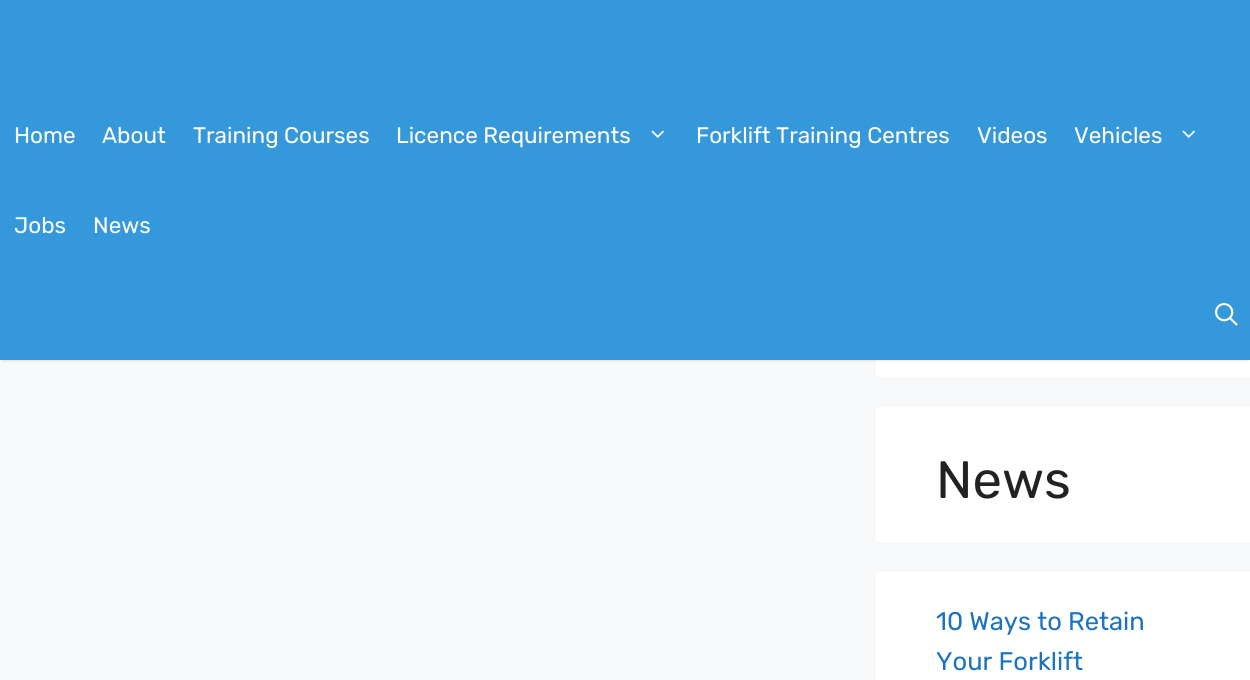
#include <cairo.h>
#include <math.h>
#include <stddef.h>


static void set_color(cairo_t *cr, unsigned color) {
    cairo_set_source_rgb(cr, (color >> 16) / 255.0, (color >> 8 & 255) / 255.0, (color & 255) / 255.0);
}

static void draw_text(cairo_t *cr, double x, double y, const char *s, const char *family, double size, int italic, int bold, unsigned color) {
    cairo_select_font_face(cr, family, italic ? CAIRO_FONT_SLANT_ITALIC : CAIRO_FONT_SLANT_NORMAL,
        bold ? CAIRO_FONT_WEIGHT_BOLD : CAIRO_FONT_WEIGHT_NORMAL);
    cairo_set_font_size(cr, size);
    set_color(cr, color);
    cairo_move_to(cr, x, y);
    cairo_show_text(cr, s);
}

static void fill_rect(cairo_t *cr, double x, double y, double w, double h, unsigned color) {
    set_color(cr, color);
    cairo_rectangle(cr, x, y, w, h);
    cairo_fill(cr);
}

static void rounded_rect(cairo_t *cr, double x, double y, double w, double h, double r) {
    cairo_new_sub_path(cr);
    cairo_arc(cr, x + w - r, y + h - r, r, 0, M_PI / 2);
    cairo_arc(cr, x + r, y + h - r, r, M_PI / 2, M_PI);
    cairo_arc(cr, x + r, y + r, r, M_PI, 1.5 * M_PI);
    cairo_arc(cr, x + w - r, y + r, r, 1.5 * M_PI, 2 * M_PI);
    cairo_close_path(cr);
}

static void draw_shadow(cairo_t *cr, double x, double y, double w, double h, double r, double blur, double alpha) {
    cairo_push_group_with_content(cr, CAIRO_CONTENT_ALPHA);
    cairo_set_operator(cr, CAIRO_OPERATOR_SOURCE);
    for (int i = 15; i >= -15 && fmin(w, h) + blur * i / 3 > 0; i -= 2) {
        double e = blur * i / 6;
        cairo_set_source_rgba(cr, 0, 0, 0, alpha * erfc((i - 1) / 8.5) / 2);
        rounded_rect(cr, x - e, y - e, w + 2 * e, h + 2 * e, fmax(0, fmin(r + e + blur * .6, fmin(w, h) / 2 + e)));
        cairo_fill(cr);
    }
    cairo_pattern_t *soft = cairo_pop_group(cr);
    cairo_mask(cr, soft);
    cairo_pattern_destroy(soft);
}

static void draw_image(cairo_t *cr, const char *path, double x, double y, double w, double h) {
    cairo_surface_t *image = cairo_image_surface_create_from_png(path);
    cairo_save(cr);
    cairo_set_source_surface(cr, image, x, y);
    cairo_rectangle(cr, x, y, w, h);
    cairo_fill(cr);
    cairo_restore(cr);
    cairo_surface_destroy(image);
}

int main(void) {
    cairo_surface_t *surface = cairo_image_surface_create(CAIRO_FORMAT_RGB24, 1250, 680);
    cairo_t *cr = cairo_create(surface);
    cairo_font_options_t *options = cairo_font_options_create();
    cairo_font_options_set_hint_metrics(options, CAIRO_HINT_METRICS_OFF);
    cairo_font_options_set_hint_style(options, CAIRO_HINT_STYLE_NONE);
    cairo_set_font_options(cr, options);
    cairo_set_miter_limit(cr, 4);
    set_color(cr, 0xF7F8F9);
    cairo_paint(cr);
    fill_rect(cr, 876, 360, 374, 17, 0xFFFFFF);
    set_color(cr, 0x000000);
    draw_shadow(cr, 3, 6, 1245, 354, 0, 1.5, 0.2);
    fill_rect(cr, 0, 0, 1250, 360, 0x3498DB);
    draw_text(cr, 14, 143, "Home", "Rubik", 22.5, 0, 0, 0xFFFFFF);
    draw_text(cr, 102, 143, "About", "Rubik", 22.5, 0, 0, 0xFFFFFF);
    draw_text(cr, 193, 143, "Training Courses", "Rubik", 22.5, 0, 0, 0xFFFFFF);
    draw_text(cr, 396, 143, "Licence Requirements", "Rubik", 22.5, 0, 0, 0xFFFFFF);
    draw_image(cr, "assets/img1.png", 651, 130, 13, 8);
    draw_text(cr, 696, 143, "Forklift Training Centres", "Rubik", 22.5, 0, 0, 0xFFFFFF);
    draw_text(cr, 977, 143, "Videos", "Rubik", 22.5, 0, 0, 0xFFFFFF);
    draw_text(cr, 1074, 143, "Vehicles", "Rubik", 22.5, 0, 0, 0xFFFFFF);
    draw_image(cr, "assets/img1.png", 1182, 130, 13, 8);
    draw_text(cr, 14, 233, "Jobs", "Rubik", 22.5, 0, 0, 0xFFFFFF);
    draw_text(cr, 93, 233, "News", "Rubik", 22.5, 0, 0, 0xFFFFFF);
    draw_image(cr, "assets/img2.png", 1215, 303, 23, 23);
    fill_rect(cr, 876, 407, 374, 135, 0xFFFFFF);
    draw_text(cr, 936, 498, "News", "Rubik", 52.5, 0, 0, 0x222222);
    fill_rect(cr, 876, 572, 374, 108, 0xFFFFFF);
    draw_text(cr, 936, 630, "10 Ways to Retain", "Rubik", 25.5, 0, 0, 0x1E73BE);
    draw_text(cr, 936, 670, "Your Forklift", "Rubik", 25.5, 0, 0, 0x1E73BE);
    cairo_surface_write_to_png(surface, "output.png");
    cairo_font_options_destroy(options);
    cairo_destroy(cr);
    cairo_surface_destroy(surface);
    return 0;
}
